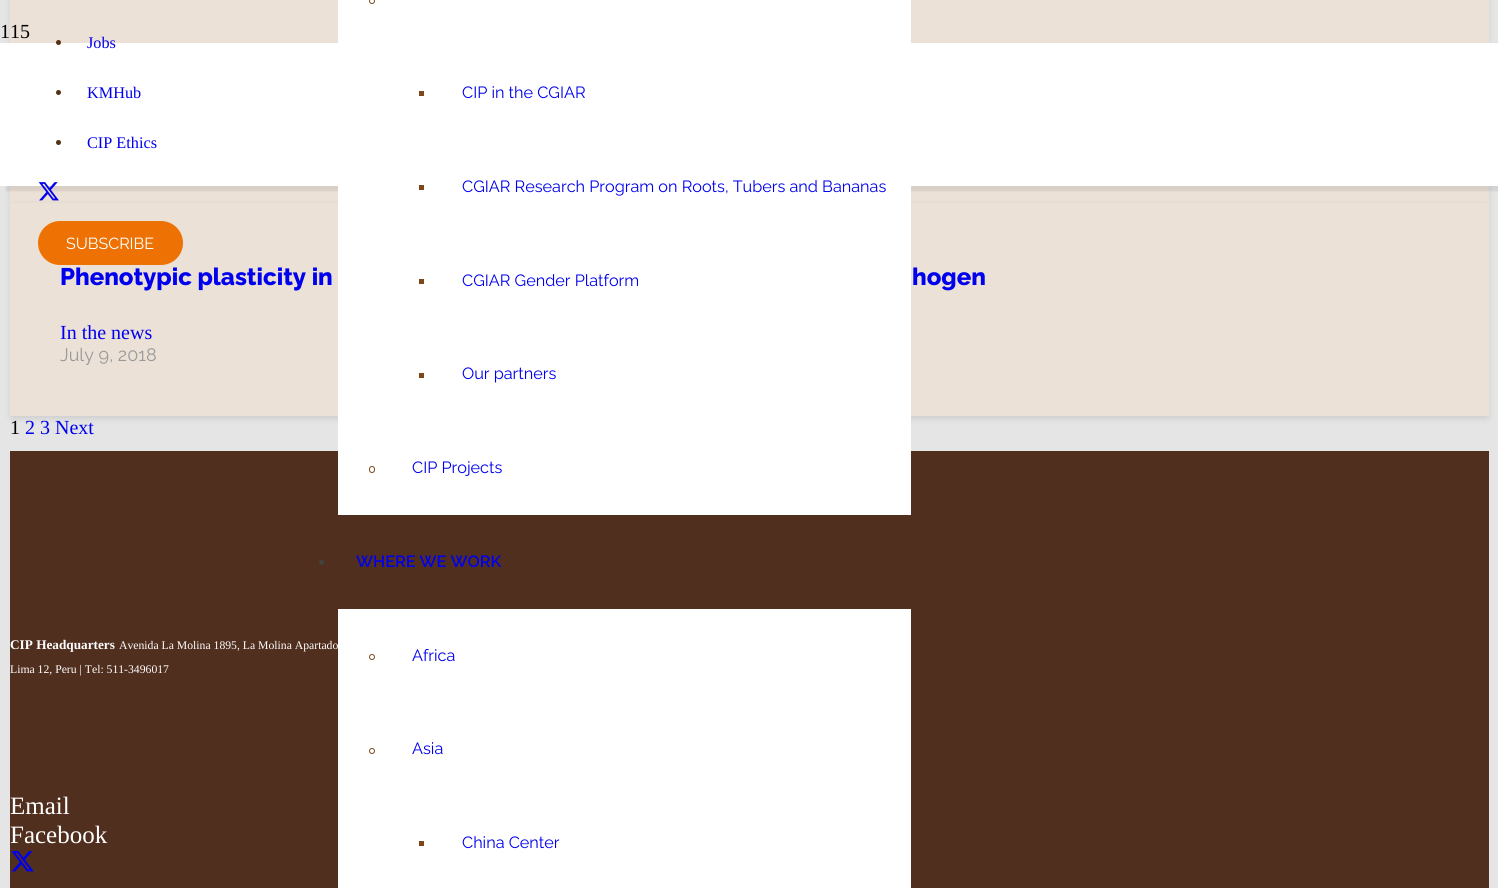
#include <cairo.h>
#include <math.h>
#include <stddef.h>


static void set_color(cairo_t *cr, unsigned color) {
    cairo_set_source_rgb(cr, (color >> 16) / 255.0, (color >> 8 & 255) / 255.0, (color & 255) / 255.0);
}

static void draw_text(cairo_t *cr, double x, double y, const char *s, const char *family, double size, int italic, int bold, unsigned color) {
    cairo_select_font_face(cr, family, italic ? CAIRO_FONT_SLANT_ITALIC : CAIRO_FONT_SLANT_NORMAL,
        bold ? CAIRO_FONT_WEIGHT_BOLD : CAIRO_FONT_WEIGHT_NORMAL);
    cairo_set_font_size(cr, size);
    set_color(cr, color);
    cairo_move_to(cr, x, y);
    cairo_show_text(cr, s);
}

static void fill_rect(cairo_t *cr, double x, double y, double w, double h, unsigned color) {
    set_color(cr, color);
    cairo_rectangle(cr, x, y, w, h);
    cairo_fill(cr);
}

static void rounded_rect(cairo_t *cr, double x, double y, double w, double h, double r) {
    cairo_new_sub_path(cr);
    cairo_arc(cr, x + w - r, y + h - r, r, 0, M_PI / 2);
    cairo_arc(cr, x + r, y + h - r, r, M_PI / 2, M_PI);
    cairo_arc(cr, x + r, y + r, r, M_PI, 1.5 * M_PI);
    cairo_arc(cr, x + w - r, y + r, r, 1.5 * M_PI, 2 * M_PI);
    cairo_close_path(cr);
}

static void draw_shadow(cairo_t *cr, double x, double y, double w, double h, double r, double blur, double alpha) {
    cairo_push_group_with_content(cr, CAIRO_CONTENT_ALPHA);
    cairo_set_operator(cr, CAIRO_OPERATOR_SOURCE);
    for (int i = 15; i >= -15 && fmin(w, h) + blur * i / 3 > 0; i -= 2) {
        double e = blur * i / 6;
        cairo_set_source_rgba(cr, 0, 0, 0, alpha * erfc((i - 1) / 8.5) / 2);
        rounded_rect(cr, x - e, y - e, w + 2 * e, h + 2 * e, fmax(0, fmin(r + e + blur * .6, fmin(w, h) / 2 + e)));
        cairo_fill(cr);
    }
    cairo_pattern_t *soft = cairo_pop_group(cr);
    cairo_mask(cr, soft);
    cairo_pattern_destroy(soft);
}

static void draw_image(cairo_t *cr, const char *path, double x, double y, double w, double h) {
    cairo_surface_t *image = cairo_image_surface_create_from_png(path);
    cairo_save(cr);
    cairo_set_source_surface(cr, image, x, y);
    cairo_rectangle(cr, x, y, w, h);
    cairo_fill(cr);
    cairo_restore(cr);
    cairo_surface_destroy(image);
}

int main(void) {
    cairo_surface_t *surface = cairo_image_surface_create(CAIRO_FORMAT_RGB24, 1498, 888);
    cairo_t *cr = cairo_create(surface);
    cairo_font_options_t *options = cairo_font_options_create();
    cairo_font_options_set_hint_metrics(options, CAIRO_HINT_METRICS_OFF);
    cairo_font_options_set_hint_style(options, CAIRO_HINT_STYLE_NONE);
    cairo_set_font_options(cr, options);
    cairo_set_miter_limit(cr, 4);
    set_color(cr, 0xE5E5E5);
    cairo_paint(cr);
    set_color(cr, 0x000000);
    draw_shadow(cr, 10, -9, 1479, 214, 3, 3, 0.1);
    fill_rect(cr, 10, 0, 1479, 203, 0xEBE1D7);
    draw_text(cr, 0, 38, "115", "Liberation Serif", 20, 0, 0, 0x000000);
    fill_rect(cr, 0, 43, 1498, 50, 0xFFFFFF);
    set_color(cr, 0x543215);
    cairo_new_path(cr);
    cairo_arc(cr, 58.5, 42.5, 2.5, 0, 2 * M_PI);
    cairo_fill(cr);
    draw_text(cr, 87, 48, "Jobs", "Liberation Serif", 16.25, 0, 0, 0x0000EE);
    set_color(cr, 0x010101);
    draw_shadow(cr, 6, 98, 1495, 93, 0, 1, 0.08);
    fill_rect(cr, 0, 93, 1498, 93, 0xFFFFFF);
    set_color(cr, 0x543215);
    cairo_arc(cr, 58.5, 92.5, 2.5, 0, 2 * M_PI);
    cairo_fill(cr);
    draw_text(cr, 87, 98, "KMHub", "Liberation Serif", 16.25, 0, 0, 0x0000EE);
    set_color(cr, 0x543215);
    cairo_new_path(cr);
    cairo_arc(cr, 58.5, 142.5, 2.5, 0, 2 * M_PI);
    cairo_fill(cr);
    draw_text(cr, 87, 148, "CIP Ethics", "Liberation Serif", 16.25, 0, 0, 0x0000EE);
    set_color(cr, 0x000000);
    draw_shadow(cr, 10, 205, 1479, 214, 3, 3, 0.1);
    draw_image(cr, "assets/img1.png", 38, 182, 21, 19);
    fill_rect(cr, 10, 203, 1479, 213, 0xEBE1D7);
    set_color(cr, 0xEE7203);
    rounded_rect(cr, 38, 221, 145, 44, 22);
    cairo_fill(cr);
    draw_text(cr, 66, 249, "SUBSCRIBE", "Raleway", 16, 0, 0, 0xFFFFFF);
    fill_rect(cr, 10, 451, 1479, 437, 0x512F1F);
    fill_rect(cr, 338, 0, 573, 515, 0xFFFFFF);
    cairo_new_path(cr);
    cairo_arc(cr, 372, 1, 2.5, 0, 2 * M_PI);
    set_color(cr, 0x7D4717);
    cairo_set_line_width(cr, 1);
    cairo_stroke(cr);
    fill_rect(cr, 419, 91, 5, 5, 0x7D4717);
    draw_text(cr, 462, 98, "CIP in the CGIAR", "Raleway", 16.25, 0, 0, 0x0000EE);
    fill_rect(cr, 419, 185, 5, 5, 0x7D4717);
    draw_text(cr, 462, 192, "CGIAR Research Program on Roots, Tubers and Bananas", "Raleway", 16.25, 0, 0, 0x0000EE);
    fill_rect(cr, 419, 279, 5, 5, 0x7D4717);
    draw_text(cr, 462, 286, "CGIAR Gender Platform", "Raleway", 16.25, 0, 0, 0x0000EE);
    fill_rect(cr, 419, 373, 5, 5, 0x7D4717);
    draw_text(cr, 462, 379, "Our partners", "Raleway", 16.25, 0, 0, 0x0000EE);
    rounded_rect(cr, 369.5, 466.5, 5, 6, 2.5);
    set_color(cr, 0x7D4717);
    cairo_stroke(cr);
    draw_text(cr, 412, 473, "CIP Projects", "Raleway", 16.25, 0, 0, 0x0000EE);
    set_color(cr, 0x424242);
    cairo_new_path(cr);
    cairo_arc(cr, 321.5, 562.5, 2.5, 0, 2 * M_PI);
    cairo_fill(cr);
    draw_text(cr, 356, 567, "WHERE WE WORK", "Raleway SemiBold", 16.25, 0, 0, 0x0000EE);
    fill_rect(cr, 338, 609, 573, 279, 0xFFFFFF);
    cairo_new_path(cr);
    cairo_arc(cr, 372, 657, 2.5, 0, 2 * M_PI);
    set_color(cr, 0x7D4717);
    cairo_stroke(cr);
    draw_text(cr, 412, 661, "Africa", "Raleway", 16.25, 0, 0, 0x0000EE);
    cairo_new_path(cr);
    cairo_arc(cr, 372, 751, 2.5, 0, 2 * M_PI);
    set_color(cr, 0x7D4717);
    cairo_stroke(cr);
    draw_text(cr, 412, 754, "Asia", "Raleway", 16.25, 0, 0, 0x0000EE);
    fill_rect(cr, 419, 841, 5, 5, 0x7D4717);
    draw_text(cr, 462, 848, "China Center", "Raleway", 16.25, 0, 0, 0x0000EE);
    draw_text(cr, 60, 285, "Phenotypic plasticity in", "Raleway ExtraBold", 24, 0, 0, 0x0000EE);
    draw_text(cr, 912, 285, "hogen", "Raleway ExtraBold", 24, 0, 0, 0x0000EE);
    draw_text(cr, 60, 339, "In the news", "Liberation Serif", 20, 0, 0, 0x0000EE);
    draw_text(cr, 60, 361, "July 9, 2018", "Raleway", 18, 0, 0, 0x999999);
    draw_text(cr, 10, 434, "1", "Liberation Serif", 20, 0, 0, 0x000000);
    draw_text(cr, 25, 434, "2 3 Next", "Liberation Serif", 20, 0, 0, 0x0000EE);
    draw_text(cr, 10, 649, "CIP Headquarters", "Liberation Serif", 13.25, 0, 1, 0xFFFFFF);
    draw_text(cr, 119, 649, "Avenida La Molina 1895, La Molina Apartado", "Liberation Serif", 11.7, 0, 0, 0xFFFFFF);
    draw_text(cr, 10, 673, "Lima 12, Peru | Tel: 511-3496017", "Liberation Serif", 11.7, 0, 0, 0xFFFFFF);
    draw_text(cr, 10, 814, "Email", "Liberation Serif", 25, 0, 0, 0xFFFFFF);
    draw_text(cr, 10, 843, "Facebook", "Liberation Serif", 25, 0, 0, 0xFFFFFF);
    draw_image(cr, "assets/img2.png", 11, 851, 23, 21);
    cairo_surface_write_to_png(surface, "output.png");
    cairo_font_options_destroy(options);
    cairo_destroy(cr);
    cairo_surface_destroy(surface);
    return 0;
}
